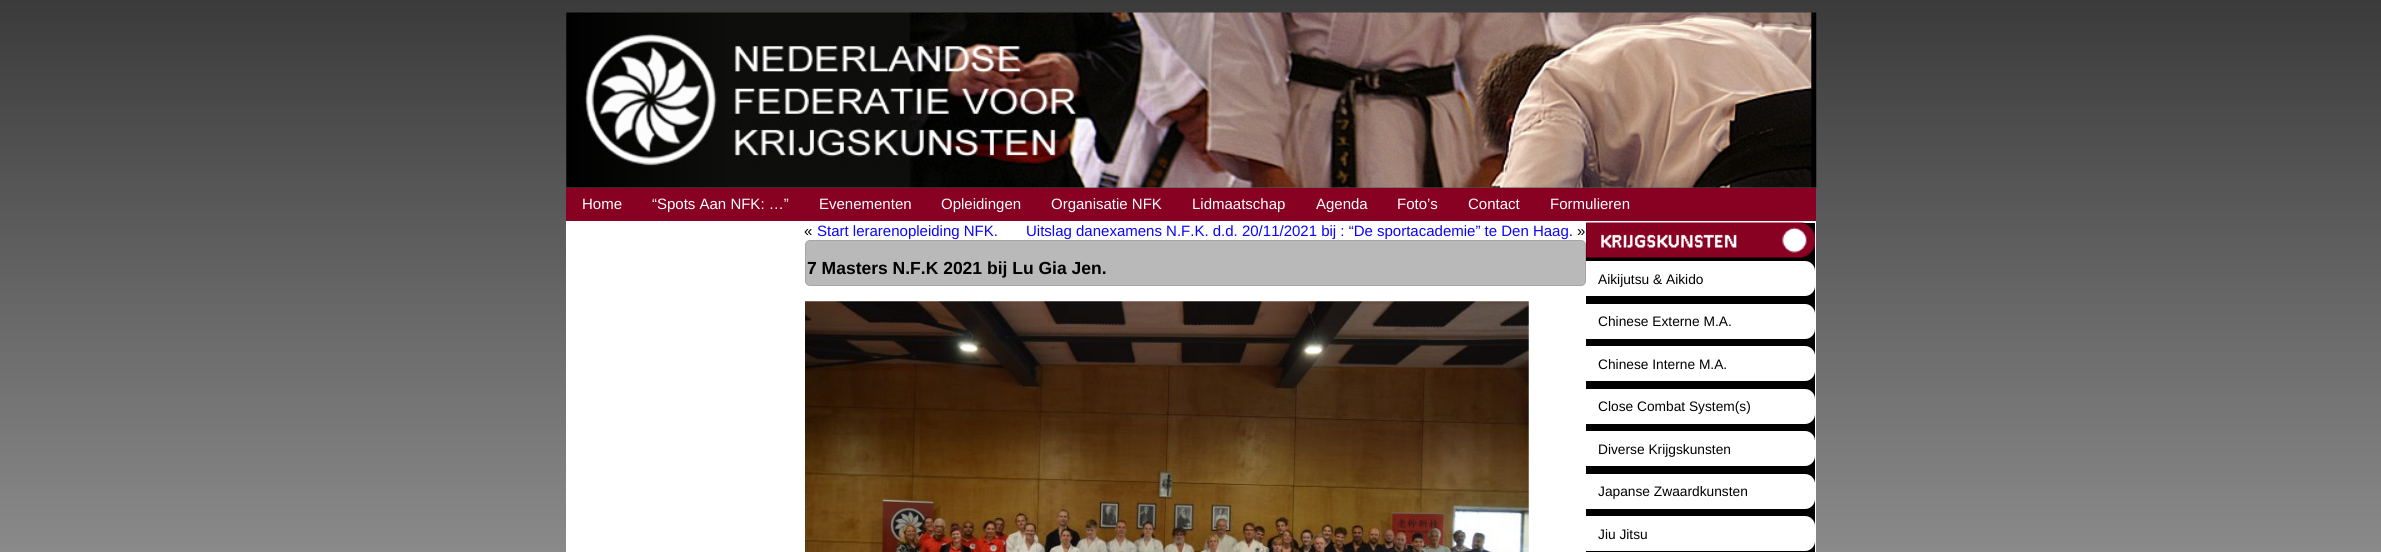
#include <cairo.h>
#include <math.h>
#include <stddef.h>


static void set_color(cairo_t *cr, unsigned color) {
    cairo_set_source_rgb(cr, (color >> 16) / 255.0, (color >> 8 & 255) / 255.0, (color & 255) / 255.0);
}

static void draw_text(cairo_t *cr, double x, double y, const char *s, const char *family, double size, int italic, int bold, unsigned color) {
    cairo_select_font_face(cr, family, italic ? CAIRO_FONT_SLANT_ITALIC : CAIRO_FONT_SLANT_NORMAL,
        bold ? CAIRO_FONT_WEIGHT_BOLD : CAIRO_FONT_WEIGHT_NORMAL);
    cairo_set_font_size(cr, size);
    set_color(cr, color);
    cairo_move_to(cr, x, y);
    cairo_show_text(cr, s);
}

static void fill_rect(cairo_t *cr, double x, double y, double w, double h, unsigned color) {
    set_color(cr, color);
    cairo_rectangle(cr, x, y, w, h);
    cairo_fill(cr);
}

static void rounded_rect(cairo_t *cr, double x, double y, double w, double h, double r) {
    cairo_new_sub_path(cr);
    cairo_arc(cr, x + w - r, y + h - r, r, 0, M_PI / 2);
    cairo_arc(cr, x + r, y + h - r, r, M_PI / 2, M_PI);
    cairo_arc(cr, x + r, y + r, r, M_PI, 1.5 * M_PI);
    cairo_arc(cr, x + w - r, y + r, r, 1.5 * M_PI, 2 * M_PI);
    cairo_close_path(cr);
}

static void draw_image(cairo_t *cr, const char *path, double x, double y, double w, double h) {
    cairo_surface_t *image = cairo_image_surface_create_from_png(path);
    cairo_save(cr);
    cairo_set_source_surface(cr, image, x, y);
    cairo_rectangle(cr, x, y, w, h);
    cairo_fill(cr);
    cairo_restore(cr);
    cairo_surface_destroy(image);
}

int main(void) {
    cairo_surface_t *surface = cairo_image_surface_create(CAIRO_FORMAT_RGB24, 2381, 552);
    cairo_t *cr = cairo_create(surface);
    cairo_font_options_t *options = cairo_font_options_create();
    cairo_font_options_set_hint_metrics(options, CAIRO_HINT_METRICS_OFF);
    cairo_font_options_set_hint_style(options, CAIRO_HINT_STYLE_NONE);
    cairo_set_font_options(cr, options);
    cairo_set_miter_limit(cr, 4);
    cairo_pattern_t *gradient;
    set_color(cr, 0xFFFFFF);
    cairo_paint(cr);
    gradient = cairo_pattern_create_linear(1191, 0, 1191, 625);
    cairo_pattern_add_color_stop_rgba(gradient, 0, 0.231, 0.231, 0.231, 1);
    cairo_pattern_add_color_stop_rgba(gradient, 0.77, 0.502, 0.502, 0.502, 1);
    cairo_pattern_add_color_stop_rgba(gradient, 1, 0.58, 0.58, 0.58, 1);
    cairo_set_source(cr, gradient);
    cairo_pattern_destroy(gradient);
    cairo_rectangle(cr, 0, 0, 2381, 552);
    cairo_fill(cr);
    draw_image(cr, "assets/img1.png", 566, 12, 1251, 176);
    fill_rect(cr, 566, 188, 1250, 33, 0x880022);
    draw_text(cr, 582, 209, "Home", "Liberation Sans", 15, 0, 0, 0xFFFFFF);
    draw_text(cr, 652, 209, "“Spots Aan NFK: …”", "Liberation Sans", 15, 0, 0, 0xFFFFFF);
    draw_text(cr, 819, 209, "Evenementen", "Liberation Sans", 15, 0, 0, 0xFFFFFF);
    draw_text(cr, 941, 209, "Opleidingen", "Liberation Sans", 15, 0, 0, 0xFFFFFF);
    draw_text(cr, 1051, 209, "Organisatie NFK", "Liberation Sans", 15, 0, 0, 0xFFFFFF);
    draw_text(cr, 1192, 209, "Lidmaatschap", "Liberation Sans", 15, 0, 0, 0xFFFFFF);
    draw_text(cr, 1316, 209, "Agenda", "Liberation Sans", 15, 0, 0, 0xFFFFFF);
    draw_text(cr, 1397, 209, "Foto’s", "Liberation Sans", 15, 0, 0, 0xFFFFFF);
    draw_text(cr, 1468, 209, "Contact", "Liberation Sans", 15, 0, 0, 0xFFFFFF);
    draw_text(cr, 1550, 209, "Formulieren", "Liberation Sans", 15, 0, 0, 0xFFFFFF);
    fill_rect(cr, 566, 221, 1250, 331, 0xFFFFFF);
    draw_text(cr, 804, 236, "«", "Liberation Sans", 15, 0, 0, 0x000000);
    draw_text(cr, 817, 236, "Start lerarenopleiding NFK.", "Liberation Sans", 15, 0, 0, 0x0C04FB);
    draw_text(cr, 1026, 236, "Uitslag danexamens N.F.K. d.d. 20/11/2021 bij : “De sportacademie” te Den Haag.", "Liberation Sans", 15, 0, 0, 0x0C04FB);
    draw_text(cr, 1577, 236, "»", "Liberation Sans", 15, 0, 0, 0x000000);
    set_color(cr, 0xB9B9B9);
    rounded_rect(cr, 805.5, 240.5, 780, 45, 4.5);
    cairo_fill_preserve(cr);
    set_color(cr, 0xA6A6A6);
    cairo_set_line_width(cr, 1);
    cairo_stroke(cr);
    draw_text(cr, 807, 274, "7 Masters N.F.K 2021 bij Lu Gia Jen.", "Liberation Sans", 17.5, 0, 1, 0x000000);
    draw_image(cr, "assets/img2.png", 805, 301, 724, 251);
    fill_rect(cr, 1586, 223, 229, 329, 0x000000);
    draw_image(cr, "assets/img3.png", 1586, 222, 229, 36);
    set_color(cr, 0xFFFFFF);
    cairo_new_path(cr);
    cairo_move_to(cr, 1586, 261);
    cairo_line_to(cr, 1805, 261);
    cairo_curve_to(cr, 1810.5, 261, 1815, 265.5, 1815, 271);
    cairo_line_to(cr, 1815, 286);
    cairo_curve_to(cr, 1815, 291.5, 1810.5, 296, 1805, 296);
    cairo_line_to(cr, 1586, 296);
    cairo_close_path(cr);
    cairo_fill(cr);
    draw_text(cr, 1598, 284, "Aikijutsu & Aikido", "Liberation Sans", 13.75, 0, 0, 0x000000);
    set_color(cr, 0xFFFFFF);
    cairo_new_path(cr);
    cairo_move_to(cr, 1586, 304);
    cairo_line_to(cr, 1805, 304);
    cairo_curve_to(cr, 1810.5, 304, 1815, 308.5, 1815, 314);
    cairo_line_to(cr, 1815, 329);
    cairo_curve_to(cr, 1815, 334.5, 1810.5, 339, 1805, 339);
    cairo_line_to(cr, 1586, 339);
    cairo_close_path(cr);
    cairo_fill(cr);
    draw_text(cr, 1598, 326, "Chinese Externe M.A.", "Liberation Sans", 13.75, 0, 0, 0x000000);
    set_color(cr, 0xFFFFFF);
    cairo_new_path(cr);
    cairo_move_to(cr, 1586, 346);
    cairo_line_to(cr, 1805, 346);
    cairo_curve_to(cr, 1810.5, 346, 1815, 350.5, 1815, 356);
    cairo_line_to(cr, 1815, 371);
    cairo_curve_to(cr, 1815, 376.5, 1810.5, 381, 1805, 381);
    cairo_line_to(cr, 1586, 381);
    cairo_close_path(cr);
    cairo_fill(cr);
    draw_text(cr, 1598, 369, "Chinese Interne M.A.", "Liberation Sans", 13.75, 0, 0, 0x000000);
    set_color(cr, 0xFFFFFF);
    cairo_new_path(cr);
    cairo_move_to(cr, 1586, 389);
    cairo_line_to(cr, 1805, 389);
    cairo_curve_to(cr, 1810.5, 389, 1815, 393.5, 1815, 399);
    cairo_line_to(cr, 1815, 414);
    cairo_curve_to(cr, 1815, 419.5, 1810.5, 424, 1805, 424);
    cairo_line_to(cr, 1586, 424);
    cairo_close_path(cr);
    cairo_fill(cr);
    draw_text(cr, 1598, 411, "Close Combat System(s)", "Liberation Sans", 13.75, 0, 0, 0x000000);
    set_color(cr, 0xFFFFFF);
    cairo_new_path(cr);
    cairo_move_to(cr, 1586, 431);
    cairo_line_to(cr, 1805, 431);
    cairo_curve_to(cr, 1810.5, 431, 1815, 435.5, 1815, 441);
    cairo_line_to(cr, 1815, 456);
    cairo_curve_to(cr, 1815, 461.5, 1810.5, 466, 1805, 466);
    cairo_line_to(cr, 1586, 466);
    cairo_close_path(cr);
    cairo_fill(cr);
    draw_text(cr, 1598, 454, "Diverse Krijgskunsten", "Liberation Sans", 13.75, 0, 0, 0x000000);
    set_color(cr, 0xFFFFFF);
    cairo_new_path(cr);
    cairo_move_to(cr, 1586, 474);
    cairo_line_to(cr, 1805, 474);
    cairo_curve_to(cr, 1810.5, 474, 1815, 478.5, 1815, 484);
    cairo_line_to(cr, 1815, 499);
    cairo_curve_to(cr, 1815, 504.5, 1810.5, 509, 1805, 509);
    cairo_line_to(cr, 1586, 509);
    cairo_close_path(cr);
    cairo_fill(cr);
    draw_text(cr, 1598, 496, "Japanse Zwaardkunsten", "Liberation Sans", 13.75, 0, 0, 0x000000);
    set_color(cr, 0xFFFFFF);
    cairo_new_path(cr);
    cairo_move_to(cr, 1586, 516);
    cairo_line_to(cr, 1805, 516);
    cairo_curve_to(cr, 1810.5, 516, 1815, 520.5, 1815, 526);
    cairo_line_to(cr, 1815, 541);
    cairo_curve_to(cr, 1815, 546.5, 1810.5, 551, 1805, 551);
    cairo_line_to(cr, 1586, 551);
    cairo_close_path(cr);
    cairo_fill(cr);
    draw_text(cr, 1598, 539, "Jiu Jitsu", "Liberation Sans", 13.75, 0, 0, 0x000000);
    cairo_surface_write_to_png(surface, "output.png");
    cairo_font_options_destroy(options);
    cairo_destroy(cr);
    cairo_surface_destroy(surface);
    return 0;
}
